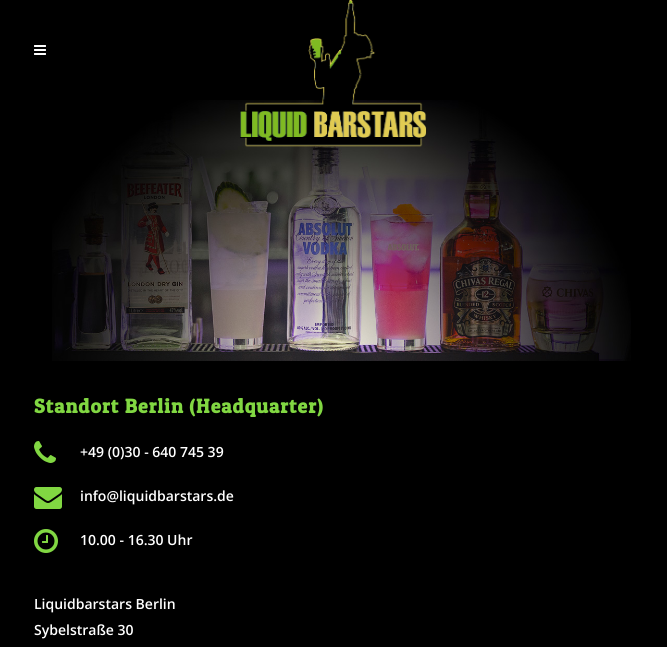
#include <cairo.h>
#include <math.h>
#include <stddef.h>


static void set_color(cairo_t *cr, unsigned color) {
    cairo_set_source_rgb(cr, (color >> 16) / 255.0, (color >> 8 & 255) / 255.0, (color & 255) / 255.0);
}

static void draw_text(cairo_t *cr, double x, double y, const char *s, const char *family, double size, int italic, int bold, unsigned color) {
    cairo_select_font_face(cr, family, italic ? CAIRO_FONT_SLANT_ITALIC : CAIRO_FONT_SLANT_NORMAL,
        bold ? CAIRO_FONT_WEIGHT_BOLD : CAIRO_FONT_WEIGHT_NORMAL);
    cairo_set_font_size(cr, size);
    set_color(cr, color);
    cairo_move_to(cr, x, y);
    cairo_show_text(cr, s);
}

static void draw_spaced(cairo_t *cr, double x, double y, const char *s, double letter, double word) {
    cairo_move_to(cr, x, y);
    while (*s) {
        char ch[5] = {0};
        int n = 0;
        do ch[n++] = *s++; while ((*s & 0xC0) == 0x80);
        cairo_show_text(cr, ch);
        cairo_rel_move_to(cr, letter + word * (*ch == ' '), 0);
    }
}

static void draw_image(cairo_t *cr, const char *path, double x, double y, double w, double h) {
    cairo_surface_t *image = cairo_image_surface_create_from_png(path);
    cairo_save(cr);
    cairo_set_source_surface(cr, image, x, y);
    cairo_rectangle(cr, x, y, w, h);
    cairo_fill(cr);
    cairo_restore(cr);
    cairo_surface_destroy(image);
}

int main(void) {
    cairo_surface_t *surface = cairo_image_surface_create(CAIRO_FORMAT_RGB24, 667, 647);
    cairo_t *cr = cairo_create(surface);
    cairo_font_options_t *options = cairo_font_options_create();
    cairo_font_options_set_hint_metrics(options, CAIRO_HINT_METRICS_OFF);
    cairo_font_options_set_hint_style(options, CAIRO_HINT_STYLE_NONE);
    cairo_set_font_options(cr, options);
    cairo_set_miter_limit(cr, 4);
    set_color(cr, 0x000000);
    cairo_paint(cr);
    draw_image(cr, "assets/img1.png", 34, 45, 12, 10);
    draw_image(cr, "assets/img3.png", 52, 100, 579, 261);
    draw_image(cr, "assets/img2.png", 240, 0, 187, 147);
    cairo_select_font_face(cr, "Patua One", CAIRO_FONT_SLANT_NORMAL, CAIRO_FONT_WEIGHT_BOLD);
    cairo_set_font_size(cr, 20);
    set_color(cr, 0x81D742);
    draw_spaced(cr, 34, 413, "Standort Berlin (Headquarter)", 1, 0);
    draw_image(cr, "assets/img4.png", 34, 441, 22, 22);
    draw_text(cr, 80, 457, "+49 (0)30 - 640 745 39", "Open Sans SemiBold", 14, 0, 0, 0xFFFFFF);
    draw_image(cr, "assets/img5.png", 34, 487, 28, 22);
    draw_text(cr, 80, 501, "info@liquidbarstars.de", "Open Sans SemiBold", 14, 0, 0, 0xFFFFFF);
    draw_image(cr, "assets/img6.png", 34, 529, 24, 24);
    draw_text(cr, 80, 545, "10.00 - 16.30 Uhr", "Open Sans SemiBold", 14, 0, 0, 0xFFFFFF);
    draw_text(cr, 34, 609, "Liquidbarstars Berlin", "Open Sans SemiBold", 14, 0, 0, 0xFFFFFF);
    draw_text(cr, 34, 635, "Sybelstraße 30", "Open Sans SemiBold", 14, 0, 0, 0xFFFFFF);
    cairo_surface_write_to_png(surface, "output.png");
    cairo_font_options_destroy(options);
    cairo_destroy(cr);
    cairo_surface_destroy(surface);
    return 0;
}
